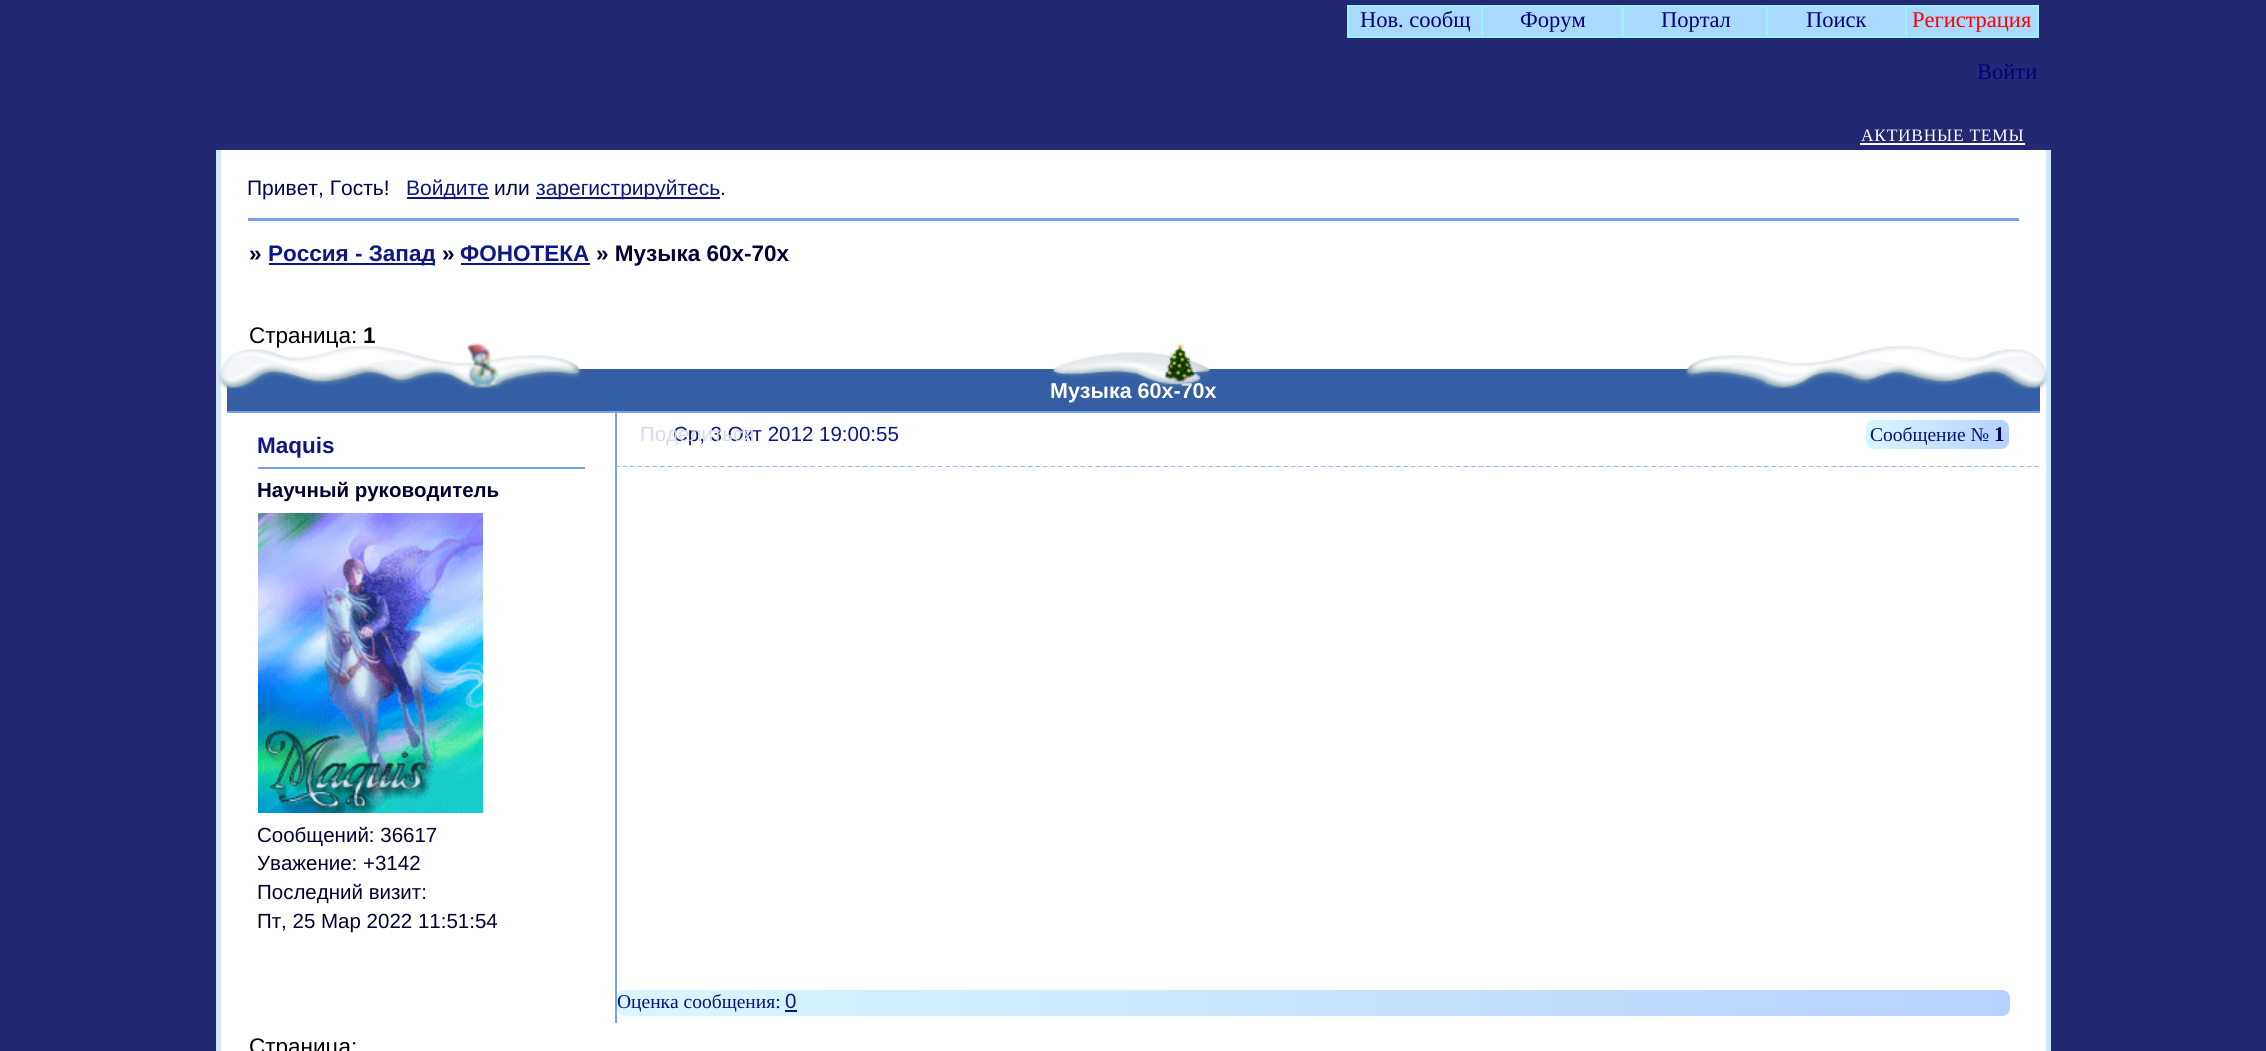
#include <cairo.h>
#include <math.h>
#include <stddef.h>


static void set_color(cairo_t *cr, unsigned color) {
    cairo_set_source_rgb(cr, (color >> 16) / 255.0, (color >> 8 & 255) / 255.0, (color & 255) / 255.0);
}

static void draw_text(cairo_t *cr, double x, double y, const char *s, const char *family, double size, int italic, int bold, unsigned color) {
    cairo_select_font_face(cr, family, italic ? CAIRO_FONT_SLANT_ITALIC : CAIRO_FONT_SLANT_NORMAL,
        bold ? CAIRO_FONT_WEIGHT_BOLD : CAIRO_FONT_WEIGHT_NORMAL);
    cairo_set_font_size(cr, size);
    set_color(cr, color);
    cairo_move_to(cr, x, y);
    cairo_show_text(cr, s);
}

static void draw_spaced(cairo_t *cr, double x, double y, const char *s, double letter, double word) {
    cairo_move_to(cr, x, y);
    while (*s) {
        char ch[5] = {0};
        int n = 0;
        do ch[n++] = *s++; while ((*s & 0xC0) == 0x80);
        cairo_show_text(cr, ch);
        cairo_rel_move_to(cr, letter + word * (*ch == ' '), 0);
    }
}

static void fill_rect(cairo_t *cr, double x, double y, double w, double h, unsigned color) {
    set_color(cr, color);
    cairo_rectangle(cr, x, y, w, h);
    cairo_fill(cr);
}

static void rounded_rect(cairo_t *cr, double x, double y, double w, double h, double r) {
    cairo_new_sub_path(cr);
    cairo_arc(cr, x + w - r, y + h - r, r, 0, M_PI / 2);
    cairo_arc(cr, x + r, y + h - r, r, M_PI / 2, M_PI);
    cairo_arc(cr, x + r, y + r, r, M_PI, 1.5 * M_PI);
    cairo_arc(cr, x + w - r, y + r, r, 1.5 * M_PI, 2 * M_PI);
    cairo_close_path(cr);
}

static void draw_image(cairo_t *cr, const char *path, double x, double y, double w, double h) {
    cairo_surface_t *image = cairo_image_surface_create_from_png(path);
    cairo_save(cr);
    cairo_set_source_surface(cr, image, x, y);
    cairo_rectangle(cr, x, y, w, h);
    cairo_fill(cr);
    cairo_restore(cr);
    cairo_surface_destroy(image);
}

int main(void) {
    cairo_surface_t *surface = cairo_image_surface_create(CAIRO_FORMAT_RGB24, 2266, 1051);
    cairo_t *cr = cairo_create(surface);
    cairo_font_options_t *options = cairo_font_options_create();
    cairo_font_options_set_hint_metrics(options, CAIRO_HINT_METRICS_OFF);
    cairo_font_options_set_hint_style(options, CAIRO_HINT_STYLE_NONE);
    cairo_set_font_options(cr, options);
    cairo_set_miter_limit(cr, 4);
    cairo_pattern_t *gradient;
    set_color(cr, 0x232873);
    cairo_paint(cr);
    fill_rect(cr, 221, 150, 1825, 901, 0xFFFFFF);
    fill_rect(cr, 2046, 150, 5, 901, 0xD0E7FF);
    fill_rect(cr, 216, 150, 5, 901, 0xD0E7FF);
    fill_rect(cr, 1349, 7, 132, 29, 0xA9D9FC);
    cairo_rectangle(cr, 1348, 6, 135, 31);
    set_color(cr, 0x99F2FE);
    cairo_stroke(cr);
    draw_text(cr, 1360, 27, "Нов. сообщ", "Liberation Serif", 22.5, 0, 0, 0x00007A);
    set_color(cr, 0xA9D9FC);
    cairo_rectangle(cr, 1482, 6, 140, 31);
    cairo_fill_preserve(cr);
    set_color(cr, 0x99F2FE);
    cairo_stroke(cr);
    draw_text(cr, 1520, 27, "Форум", "Liberation Serif", 22.5, 0, 0, 0x00007A);
    fill_rect(cr, 1624, 7, 142, 29, 0xA9D9FC);
    cairo_rectangle(cr, 1623, 6, 145, 31);
    set_color(cr, 0x99F2FE);
    cairo_stroke(cr);
    draw_text(cr, 1661, 27, "Портал", "Liberation Serif", 22.5, 0, 0, 0x00007A);
    fill_rect(cr, 1768, 7, 137, 29, 0xA9D9FC);
    cairo_rectangle(cr, 1767, 6, 140, 31);
    set_color(cr, 0x99F2FE);
    cairo_stroke(cr);
    draw_text(cr, 1806, 27, "Поиск", "Liberation Serif", 22.5, 0, 0, 0x00007A);
    set_color(cr, 0xA9D9FC);
    cairo_rectangle(cr, 1906, 6, 132, 31);
    cairo_fill_preserve(cr);
    set_color(cr, 0x99F2FE);
    cairo_stroke(cr);
    draw_text(cr, 1912, 27, "Регистрация", "Liberation Serif", 22.5, 0, 0, 0xFF0000);
    draw_text(cr, 1977, 79, "Войти", "Liberation Serif", 22.5, 0, 0, 0x00007A);
    cairo_set_font_size(cr, 17.4);
    set_color(cr, 0xFFFFFF);
    draw_spaced(cr, 1861, 141, "АКТИВНЫЕ ТЕМЫ", 0.75, 0);
    fill_rect(cr, 1860, 143, 165, 2, 0xFFFFFF);
    draw_text(cr, 247, 195, "Привет, Гость!", "Liberation Sans", 21, 0, 0, 0x020650);
    fill_rect(cr, 407, 197, 82, 2, 0x0B1883);
    draw_text(cr, 406, 195, "Войдите", "Liberation Sans", 21, 0, 0, 0x0B1883);
    draw_text(cr, 494, 195, "или", "Liberation Sans", 21, 0, 0, 0x020650);
    fill_rect(cr, 536, 197, 184, 2, 0x0B1883);
    draw_text(cr, 536, 195, "зарегистрируйтесь", "Liberation Sans", 21, 0, 0, 0x0B1883);
    draw_text(cr, 720, 195, ".", "Liberation Sans", 21, 0, 0, 0x020650);
    fill_rect(cr, 248, 218, 1771, 3, 0x74A1F2);
    draw_text(cr, 249, 261, "»", "Liberation Sans", 22.5, 0, 1, 0x000033);
    fill_rect(cr, 269, 263, 166, 2, 0x0B1883);
    draw_text(cr, 268, 261, "Россия - Запад", "Liberation Sans", 22.5, 0, 1, 0x0B1883);
    draw_text(cr, 442, 261, "»", "Liberation Sans", 22.5, 0, 1, 0x000033);
    draw_text(cr, 460, 261, "ФОНОТЕКА", "Liberation Sans", 22.5, 0, 1, 0x0B1883);
    fill_rect(cr, 461, 263, 129, 2, 0x0B1883);
    draw_text(cr, 596, 261, "» Музыка 60х-70х", "Liberation Sans", 22.5, 0, 1, 0x000033);
    fill_rect(cr, 227, 369, 1813, 42, 0x345FA5);
    draw_text(cr, 1050, 398, "Музыка 60х-70х", "Liberation Sans", 21.5, 0, 1, 0xFFFFFF);
    draw_image(cr, "assets/img1.png", 219, 343, 1829, 46);
    draw_text(cr, 249, 343, "Страница:", "Liberation Sans", 22.5, 0, 0, 0x000000);
    draw_text(cr, 363, 343, "1", "Liberation Sans", 22.5, 0, 1, 0x000000);
    cairo_new_path(cr);
    cairo_move_to(cr, 615, 467);
    cairo_line_to(cr, 2040, 467);
    set_color(cr, 0x74A1F2);
    cairo_set_line_width(cr, 1.5);
    cairo_set_dash(cr, (double[]){4.5, 3.01}, 2, 0);
    cairo_stroke(cr);
    fill_rect(cr, 615, 413, 2, 55, 0x74A1F2);
    fill_rect(cr, 615, 467, 1424, 1, 0xFFFFFF);
    fill_rect(cr, 258, 467, 327, 2, 0x74A1F2);
    draw_text(cr, 257, 453, "Maquis", "Liberation Sans", 22.5, 0, 1, 0x0B1883);
    draw_text(cr, 257, 497, "Научный руководитель", "Liberation Sans", 20.5, 0, 1, 0x000033);
    draw_image(cr, "assets/img2.png", 258, 513, 225, 300);
    draw_text(cr, 257, 842, "Сообщений: 36617", "Liberation Sans", 20.5, 0, 0, 0x000033);
    draw_text(cr, 257, 870, "Уважение: +3142", "Liberation Sans", 20.5, 0, 0, 0x000033);
    draw_text(cr, 257, 899, "Последний визит:", "Liberation Sans", 20.5, 0, 0, 0x000033);
    draw_text(cr, 257, 928, "Пт, 25 Мар 2022 11:51:54", "Liberation Sans", 20.5, 0, 0, 0x000033);
    fill_rect(cr, 615, 467, 2, 556, 0x74A1F2);
    gradient = cairo_pattern_create_linear(617, 1003, 2010, 1003);
    cairo_pattern_add_color_stop_rgba(gradient, 0, 0.843, 0.969, 1, 1);
    cairo_pattern_add_color_stop_rgba(gradient, 1, 0.71, 0.82, 1, 1);
    cairo_set_source(cr, gradient);
    cairo_pattern_destroy(gradient);
    rounded_rect(cr, 617, 990, 1393, 26, 8);
    cairo_fill(cr);
    draw_text(cr, 617, 1008, "Оценка сообщения:", "Liberation Serif", 19.5, 0, 0, 0x051278);
    draw_text(cr, 785, 1008, "0", "Liberation Sans", 20.5, 0, 0, 0x0B1883);
    fill_rect(cr, 785, 1010, 12, 2, 0x0B1883);
    fill_rect(cr, 227, 411, 1813, 2, 0x74A1F2);
    draw_text(cr, 673, 441, "Ср, 3 Окт 2012 19:00:55", "Liberation Sans", 20.5, 0, 0, 0x0B1883);
    draw_text(cr, 640, 441, "Поделиться", "Liberation Sans", 20.5, 0, 0, 0xD8DAEB);
    gradient = cairo_pattern_create_linear(1866, 434, 2009, 434);
    cairo_pattern_add_color_stop_rgba(gradient, 0, 0.843, 0.969, 1, 1);
    cairo_pattern_add_color_stop_rgba(gradient, 1, 0.71, 0.82, 1, 1);
    cairo_set_source(cr, gradient);
    cairo_pattern_destroy(gradient);
    rounded_rect(cr, 1866, 420, 143, 29, 8);
    cairo_fill(cr);
    draw_text(cr, 1870, 441, "Сообщение №", "Liberation Serif", 19.5, 0, 0, 0x051278);
    draw_text(cr, 1994, 441, "1", "Liberation Serif", 21, 0, 1, 0x000059);
    draw_text(cr, 249, 1054, "Страница:", "Liberation Sans", 22.5, 0, 0, 0x000000);
    cairo_surface_write_to_png(surface, "output.png");
    cairo_font_options_destroy(options);
    cairo_destroy(cr);
    cairo_surface_destroy(surface);
    return 0;
}
